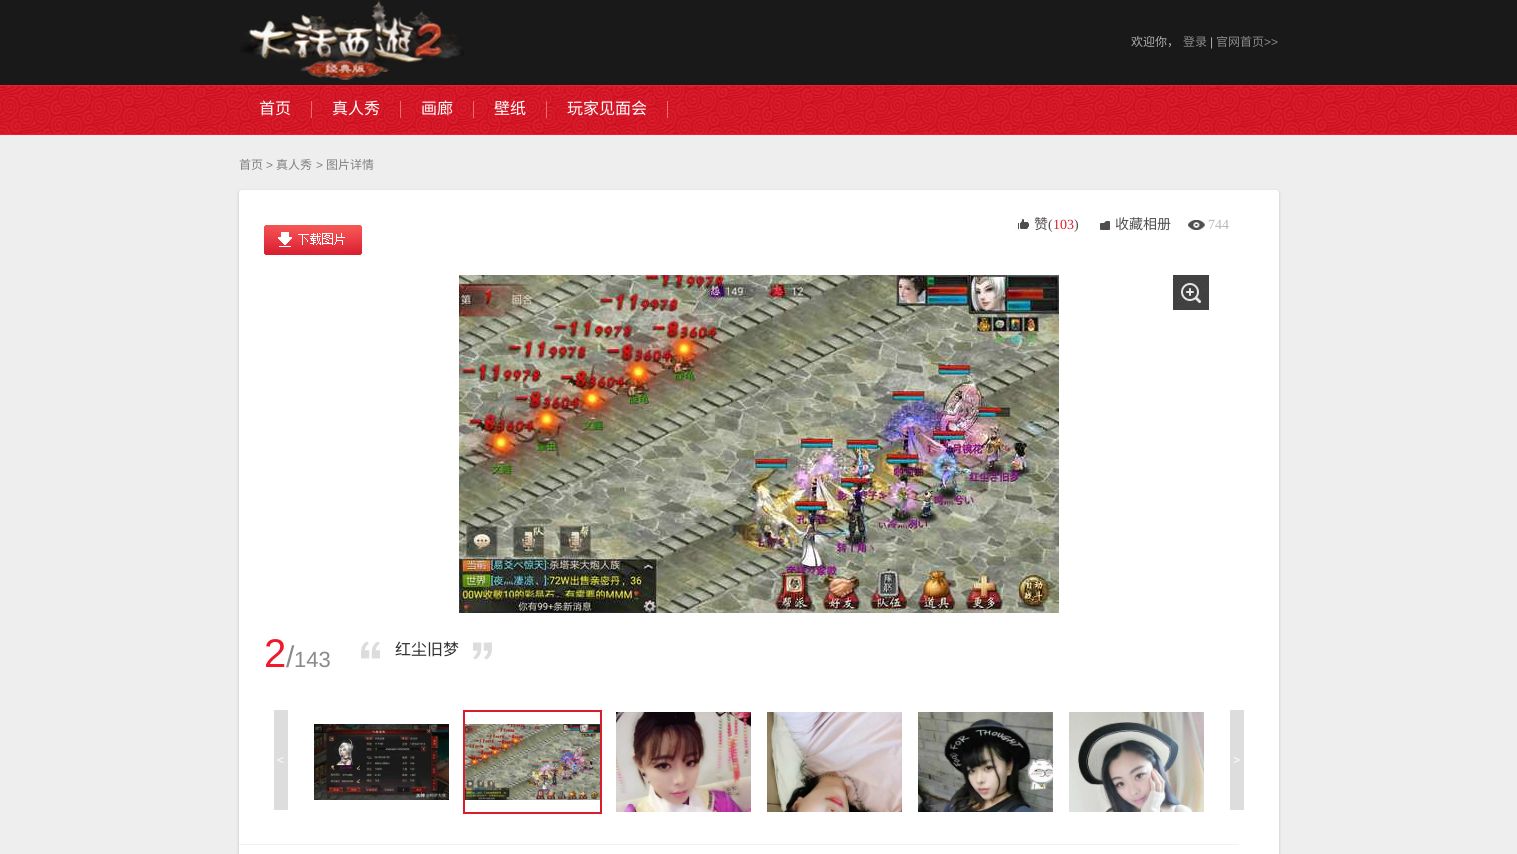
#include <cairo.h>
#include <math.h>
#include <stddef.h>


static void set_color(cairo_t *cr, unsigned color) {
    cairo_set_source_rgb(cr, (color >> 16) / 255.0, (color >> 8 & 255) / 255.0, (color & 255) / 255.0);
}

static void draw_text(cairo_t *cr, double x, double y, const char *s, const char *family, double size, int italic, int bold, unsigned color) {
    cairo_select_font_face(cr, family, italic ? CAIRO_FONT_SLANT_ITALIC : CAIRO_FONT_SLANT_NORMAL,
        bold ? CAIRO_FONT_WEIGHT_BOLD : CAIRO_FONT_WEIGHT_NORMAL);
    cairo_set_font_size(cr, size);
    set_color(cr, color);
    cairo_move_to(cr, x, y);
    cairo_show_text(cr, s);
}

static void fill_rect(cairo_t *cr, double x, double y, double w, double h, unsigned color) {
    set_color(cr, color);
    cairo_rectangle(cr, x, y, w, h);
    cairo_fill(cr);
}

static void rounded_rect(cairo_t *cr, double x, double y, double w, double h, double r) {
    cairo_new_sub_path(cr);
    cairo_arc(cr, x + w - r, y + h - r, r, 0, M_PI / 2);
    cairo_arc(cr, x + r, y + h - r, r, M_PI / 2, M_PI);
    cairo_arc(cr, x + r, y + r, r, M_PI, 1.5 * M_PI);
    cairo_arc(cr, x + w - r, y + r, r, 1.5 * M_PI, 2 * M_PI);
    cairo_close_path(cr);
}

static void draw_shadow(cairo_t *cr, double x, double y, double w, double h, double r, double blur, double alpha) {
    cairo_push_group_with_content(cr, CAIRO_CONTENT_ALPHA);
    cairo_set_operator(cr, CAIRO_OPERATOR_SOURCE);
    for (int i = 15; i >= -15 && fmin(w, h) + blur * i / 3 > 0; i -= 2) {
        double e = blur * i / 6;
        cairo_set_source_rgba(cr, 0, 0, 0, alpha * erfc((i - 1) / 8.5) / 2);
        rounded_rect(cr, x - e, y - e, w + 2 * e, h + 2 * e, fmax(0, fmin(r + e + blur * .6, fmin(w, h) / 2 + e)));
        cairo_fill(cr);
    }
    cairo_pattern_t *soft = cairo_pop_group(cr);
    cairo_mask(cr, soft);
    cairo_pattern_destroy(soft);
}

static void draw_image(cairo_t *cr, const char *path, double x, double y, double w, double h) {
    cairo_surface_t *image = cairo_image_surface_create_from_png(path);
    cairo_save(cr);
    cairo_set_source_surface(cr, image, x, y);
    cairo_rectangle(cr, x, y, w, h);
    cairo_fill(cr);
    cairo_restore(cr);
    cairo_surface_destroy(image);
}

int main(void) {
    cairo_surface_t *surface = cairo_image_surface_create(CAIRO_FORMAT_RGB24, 1517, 854);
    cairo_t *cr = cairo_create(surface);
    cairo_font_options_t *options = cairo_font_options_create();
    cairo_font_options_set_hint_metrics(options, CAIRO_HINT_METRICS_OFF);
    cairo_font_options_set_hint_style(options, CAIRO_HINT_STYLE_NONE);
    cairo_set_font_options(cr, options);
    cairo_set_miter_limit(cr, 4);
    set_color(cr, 0xEEEEEE);
    cairo_paint(cr);
    fill_rect(cr, 0, 0, 1517, 85, 0x191919);
    draw_image(cr, "assets/img1.png", 240, 0, 224, 80);
    draw_text(cr, 1131, 46, "欢迎你，", "Noto Sans CJK SC", 12, 0, 0, 0xB0B0B0);
    draw_text(cr, 1183, 46, "登录", "Noto Sans CJK SC", 12, 0, 0, 0x8B8A8B);
    draw_text(cr, 1210, 46, "|", "Liberation Sans", 12, 0, 0, 0xB0B0B0);
    draw_text(cr, 1216, 46, "官网首页", "Noto Sans CJK SC", 12, 0, 0, 0x8B8A8B);
    draw_text(cr, 1264, 46, ">>", "Liberation Sans", 12, 0, 0, 0x8B8A8B);
    draw_image(cr, "assets/img2.png", 0, 85, 1517, 50);
    fill_rect(cr, 311, 101, 1, 17, 0xF06A76);
    draw_text(cr, 259, 114, "首页", "Noto Sans CJK SC", 16, 0, 0, 0xFFFFFF);
    fill_rect(cr, 400, 101, 1, 17, 0xF06A76);
    draw_text(cr, 332, 114, "真人秀", "Noto Sans CJK SC", 16, 0, 0, 0xFFFFFF);
    fill_rect(cr, 473, 101, 1, 17, 0xF06A76);
    draw_text(cr, 421, 114, "画廊", "Noto Sans CJK SC", 16, 0, 0, 0xFFFFFF);
    fill_rect(cr, 546, 101, 1, 17, 0xF06A76);
    draw_text(cr, 494, 114, "壁纸", "Noto Sans CJK SC", 16, 0, 0, 0xFFFFFF);
    fill_rect(cr, 667, 101, 1, 17, 0xF06A76);
    draw_text(cr, 567, 114, "玩家见面会", "Noto Sans CJK SC", 16, 0, 0, 0xFFFFFF);
    draw_text(cr, 239, 169, "首页", "Noto Sans CJK SC", 12, 0, 0, 0x808080);
    draw_text(cr, 266, 169, ">", "Liberation Sans", 12, 0, 0, 0x808080);
    draw_text(cr, 276, 169, "真人秀", "Noto Sans CJK SC", 12, 0, 0, 0x808080);
    draw_text(cr, 316, 169, ">", "Liberation Sans", 12, 0, 0, 0x808080);
    draw_text(cr, 326, 169, "图片详情", "Noto Sans CJK SC", 12, 0, 0, 0x808080);
    set_color(cr, 0x040000);
    draw_shadow(cr, 239, 191, 1040, 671, 3, 1.5, 0.18);
    set_color(cr, 0xFFFFFF);
    rounded_rect(cr, 239, 190, 1040, 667, 3);
    cairo_fill(cr);
    draw_image(cr, "assets/img3.png", 1014, 219, 20, 12);
    draw_text(cr, 1034, 229, "赞", "Noto Sans CJK SC", 14, 0, 0, 0x524D4D);
    draw_text(cr, 1048, 229, "(", "Liberation Serif", 14, 0, 0, 0x524D4D);
    draw_text(cr, 1053, 229, "103", "Liberation Serif", 14, 0, 0, 0xD91D2E);
    draw_text(cr, 1074, 229, ")", "Liberation Serif", 14, 0, 0, 0x524D4D);
    draw_image(cr, "assets/img4.png", 1100, 217, 15, 13);
    draw_text(cr, 1115, 229, "收藏相册", "Noto Sans CJK SC", 14, 0, 0, 0x524D4D);
    draw_image(cr, "assets/img5.png", 1188, 219, 17, 12);
    draw_text(cr, 1208, 229, "744", "Liberation Serif", 14, 0, 0, 0xB7B7B7);
    draw_image(cr, "assets/img6.png", 264, 225, 98, 30);
    draw_image(cr, "assets/img7.png", 459, 275, 600, 338);
    draw_image(cr, "assets/img8.png", 1173, 275, 36, 35);
    draw_text(cr, 264, 667, "2", "Liberation Sans", 40, 0, 0, 0xEE192C);
    draw_text(cr, 286, 667, "/", "Liberation Sans", 30, 0, 0, 0x8B8A8B);
    draw_text(cr, 294, 667, "143", "Liberation Sans", 22, 0, 0, 0x8B8A8B);
    draw_image(cr, "assets/img9.png", 361, 641, 19, 18);
    draw_image(cr, "assets/img10.png", 473, 642, 19, 18);
    draw_text(cr, 395, 655, "红尘旧梦", "Noto Sans CJK SC", 16, 0, 0, 0x2F2F2F);
    fill_rect(cr, 274, 710, 14, 100, 0xDDDDDD);
    draw_text(cr, 277, 764, "<", "Liberation Sans", 12, 0, 0, 0xFFFFFF);
    draw_image(cr, "assets/img11.png", 314, 724, 135, 76);
    cairo_rectangle(cr, 464, 711, 137, 102);
    set_color(cr, 0xD91D2E);
    cairo_stroke(cr);
    draw_image(cr, "assets/img12.png", 465, 724, 135, 76);
    draw_image(cr, "assets/img13.png", 616, 712, 135, 100);
    draw_image(cr, "assets/img14.png", 767, 712, 135, 100);
    draw_image(cr, "assets/img15.png", 918, 712, 135, 100);
    draw_image(cr, "assets/img16.png", 1069, 712, 135, 100);
    fill_rect(cr, 1230, 710, 14, 100, 0xDDDDDD);
    draw_text(cr, 1233, 764, ">", "Liberation Sans", 12, 0, 0, 0xFFFFFF);
    fill_rect(cr, 239, 844, 1000, 1, 0xF2F2F2);
    cairo_surface_write_to_png(surface, "output.png");
    cairo_font_options_destroy(options);
    cairo_destroy(cr);
    cairo_surface_destroy(surface);
    return 0;
}
